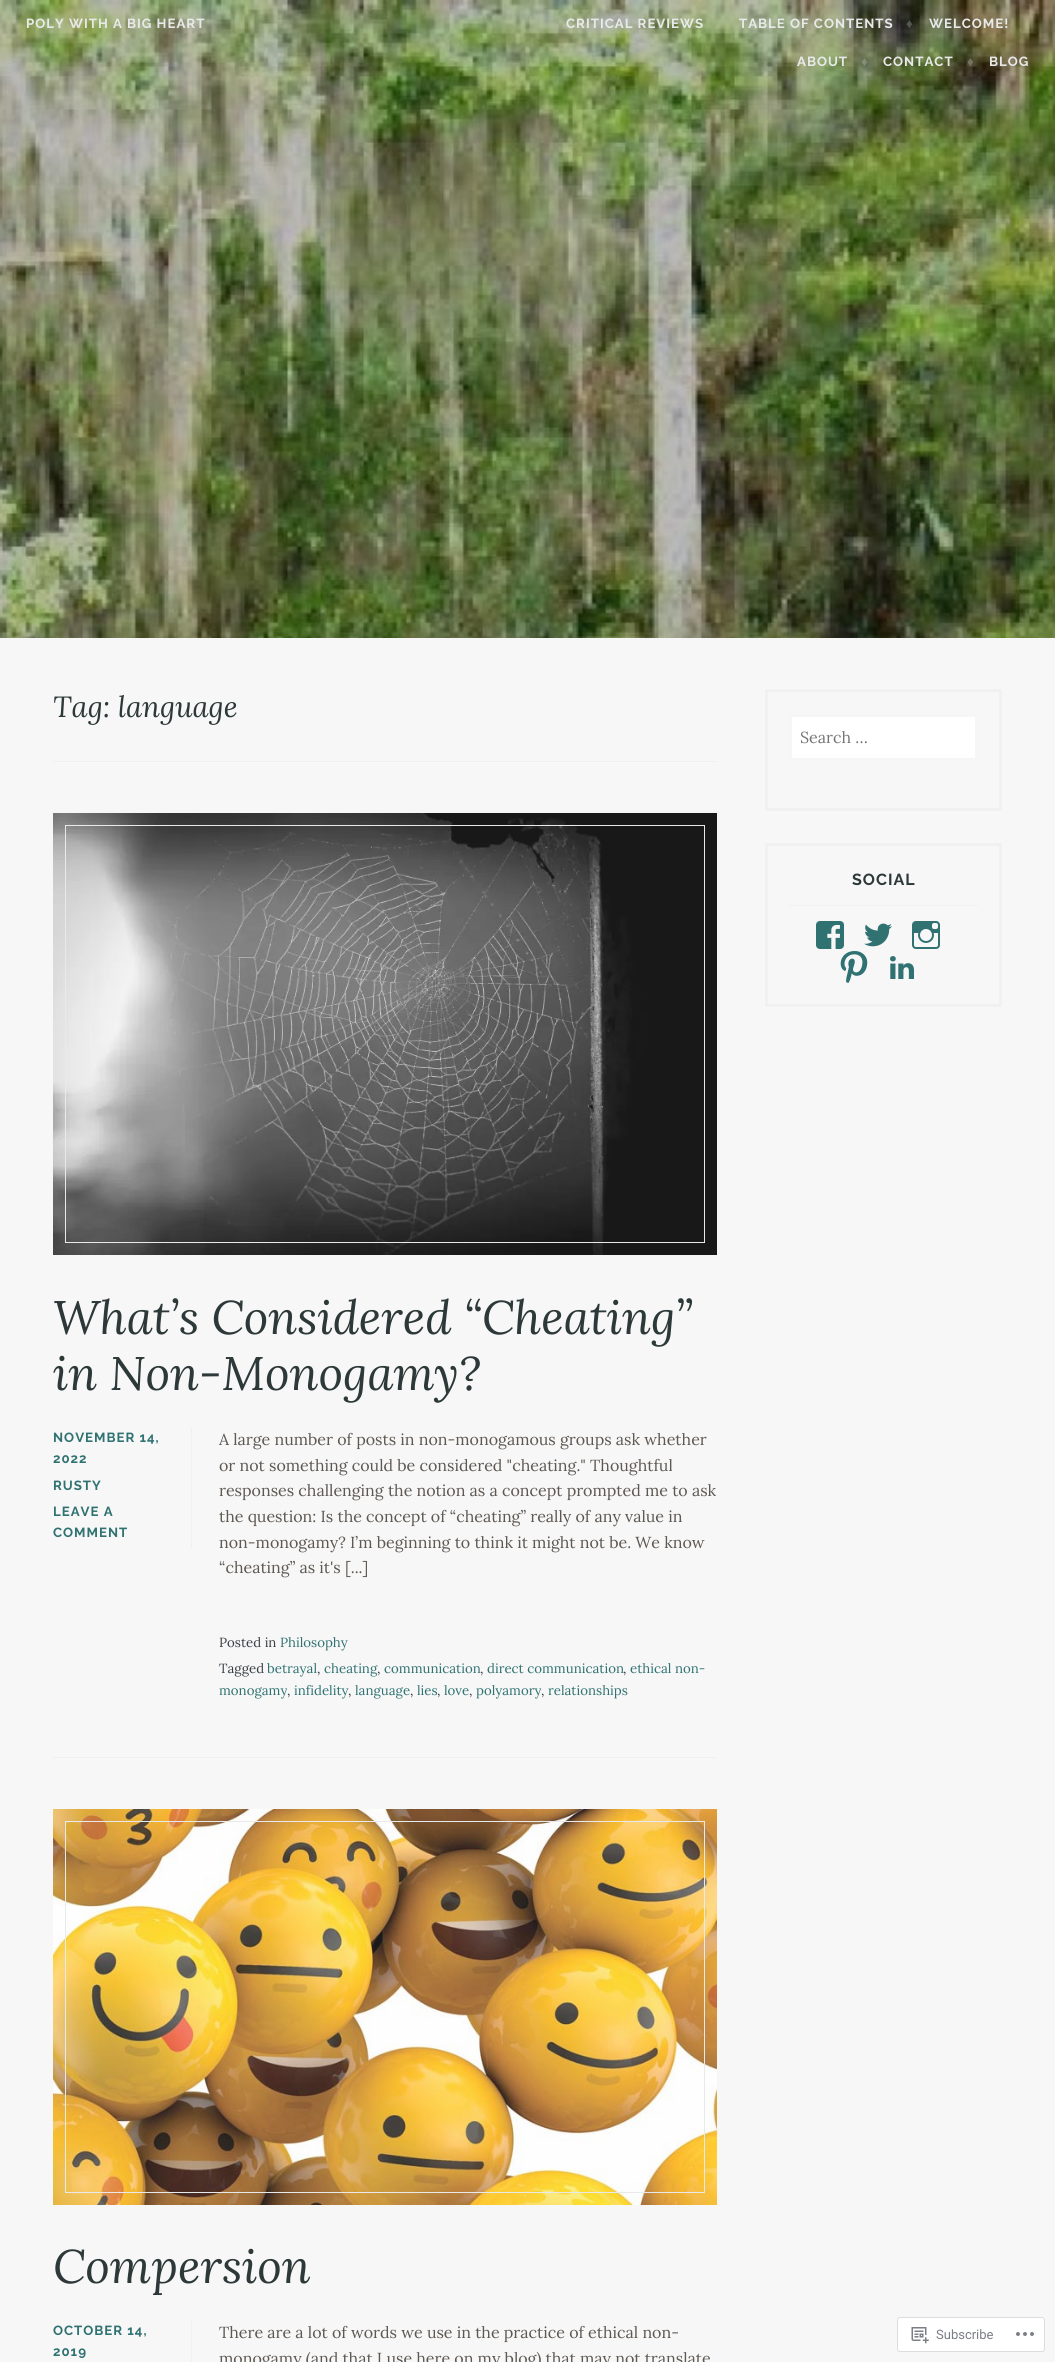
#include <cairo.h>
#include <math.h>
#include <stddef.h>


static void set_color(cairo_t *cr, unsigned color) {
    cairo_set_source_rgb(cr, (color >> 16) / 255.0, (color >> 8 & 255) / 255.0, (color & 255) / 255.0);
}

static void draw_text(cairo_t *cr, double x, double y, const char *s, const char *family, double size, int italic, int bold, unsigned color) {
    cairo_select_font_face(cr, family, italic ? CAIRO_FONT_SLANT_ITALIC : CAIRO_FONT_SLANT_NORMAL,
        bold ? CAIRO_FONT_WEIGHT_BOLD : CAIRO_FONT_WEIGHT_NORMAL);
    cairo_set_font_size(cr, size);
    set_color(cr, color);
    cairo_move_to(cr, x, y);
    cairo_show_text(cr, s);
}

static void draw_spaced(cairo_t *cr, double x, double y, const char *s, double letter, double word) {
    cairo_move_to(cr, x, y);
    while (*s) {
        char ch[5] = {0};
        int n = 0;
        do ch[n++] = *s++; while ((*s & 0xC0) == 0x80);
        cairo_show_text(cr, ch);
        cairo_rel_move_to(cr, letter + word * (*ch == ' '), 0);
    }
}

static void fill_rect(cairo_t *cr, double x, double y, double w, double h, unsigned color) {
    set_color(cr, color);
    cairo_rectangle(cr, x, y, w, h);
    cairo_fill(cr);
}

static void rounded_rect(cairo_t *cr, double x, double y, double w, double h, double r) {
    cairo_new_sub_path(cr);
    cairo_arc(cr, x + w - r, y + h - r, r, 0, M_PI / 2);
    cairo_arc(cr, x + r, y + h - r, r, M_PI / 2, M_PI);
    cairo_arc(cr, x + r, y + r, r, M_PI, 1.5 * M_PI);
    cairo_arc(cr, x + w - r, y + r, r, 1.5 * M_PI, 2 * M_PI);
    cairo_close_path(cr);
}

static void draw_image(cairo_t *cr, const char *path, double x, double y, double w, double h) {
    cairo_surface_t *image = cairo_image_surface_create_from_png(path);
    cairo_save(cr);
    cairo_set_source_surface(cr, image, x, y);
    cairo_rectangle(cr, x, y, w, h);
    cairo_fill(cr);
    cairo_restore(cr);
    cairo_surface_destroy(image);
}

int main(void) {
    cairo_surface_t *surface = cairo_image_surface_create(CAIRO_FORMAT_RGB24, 1055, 2362);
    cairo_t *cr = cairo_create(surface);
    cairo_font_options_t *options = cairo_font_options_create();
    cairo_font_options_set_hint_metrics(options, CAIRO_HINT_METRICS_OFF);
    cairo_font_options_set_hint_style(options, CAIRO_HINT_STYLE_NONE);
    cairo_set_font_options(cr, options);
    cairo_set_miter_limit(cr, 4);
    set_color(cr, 0xF7F7F7);
    cairo_paint(cr);
    fill_rect(cr, 0, 0, 1055, 638, 0x1E1C1B);
    draw_image(cr, "assets/img1.png", 0, 0, 1055, 638);
    cairo_select_font_face(cr, "Raleway", CAIRO_FONT_SLANT_NORMAL, CAIRO_FONT_WEIGHT_BOLD);
    cairo_set_font_size(cr, 13.25);
    set_color(cr, 0xE8E9EA);
    draw_spaced(cr, 26, 28, "POLY WITH A BIG HEART", 1, 0);
    draw_spaced(cr, 566, 28, "CRITICAL REVIEWS", 1, 0);
    draw_spaced(cr, 739, 28, "TABLE OF CONTENTS", 1, 0);
    cairo_select_font_face(cr, "Liberation Sans", CAIRO_FONT_SLANT_NORMAL, CAIRO_FONT_WEIGHT_BOLD);
    set_color(cr, 0x555751);
    draw_spaced(cr, 906, 28, "♦", 1, 0);
    cairo_select_font_face(cr, "Raleway", CAIRO_FONT_SLANT_NORMAL, CAIRO_FONT_WEIGHT_BOLD);
    set_color(cr, 0xE8E9EA);
    draw_spaced(cr, 929, 28, "WELCOME!", 1, 0);
    draw_spaced(cr, 797, 66, "ABOUT", 1, 0);
    cairo_select_font_face(cr, "Liberation Sans", CAIRO_FONT_SLANT_NORMAL, CAIRO_FONT_WEIGHT_BOLD);
    set_color(cr, 0x848E76);
    draw_spaced(cr, 861, 66, "♦", 1, 0);
    cairo_select_font_face(cr, "Raleway", CAIRO_FONT_SLANT_NORMAL, CAIRO_FONT_WEIGHT_BOLD);
    set_color(cr, 0xE8E9EA);
    draw_spaced(cr, 883, 66, "CONTACT", 1, 0);
    cairo_select_font_face(cr, "Liberation Sans", CAIRO_FONT_SLANT_NORMAL, CAIRO_FONT_WEIGHT_BOLD);
    set_color(cr, 0x767361);
    draw_spaced(cr, 967, 66, "♦", 1, 0);
    cairo_select_font_face(cr, "Raleway", CAIRO_FONT_SLANT_NORMAL, CAIRO_FONT_WEIGHT_BOLD);
    set_color(cr, 0xE8E9EA);
    draw_spaced(cr, 989, 66, "BLOG", 1, 0);
    fill_rect(cr, 53, 761, 664, 1, 0xF0F0F1);
    draw_text(cr, 53, 717, "Tag: language", "Lora", 29.25, 1, 0, 0x2D3838);
    fill_rect(cr, 53, 1757, 664, 1, 0xF0F0F1);
    draw_image(cr, "assets/img2.png", 53, 813, 664, 442);
    cairo_rectangle(cr, 65.5, 825.5, 639, 417);
    set_color(cr, 0xE8E9EA);
    cairo_set_line_width(cr, 1);
    cairo_stroke(cr);
    draw_text(cr, 53, 1334, "What’s Considered “Cheating”", "Lora", 47.1, 1, 0, 0x2D3838);
    draw_text(cr, 53, 1390, "in Non-Monogamy?", "Lora", 47.1, 1, 0, 0x2D3838);
    fill_rect(cr, 191, 1427, 1, 122, 0xF0F0F1);
    cairo_select_font_face(cr, "Raleway", CAIRO_FONT_SLANT_NORMAL, CAIRO_FONT_WEIGHT_BOLD);
    cairo_set_font_size(cr, 13.25);
    set_color(cr, 0x307272);
    draw_spaced(cr, 53, 1442, "NOVEMBER 14,", 1, 0);
    draw_spaced(cr, 53, 1463, "2022", 1, 0);
    draw_spaced(cr, 53, 1490, "RUSTY", 1, 0);
    draw_spaced(cr, 53, 1516, "LEAVE A", 1, 0);
    draw_spaced(cr, 53, 1537, "COMMENT", 1, 0);
    draw_text(cr, 219, 1445, "A large number of posts in non-monogamous groups ask whether", "Lora", 16, 0, 0, 0x5E5853);
    draw_text(cr, 219, 1471, "or not something could be considered \"cheating.\" Thoughtful", "Lora", 16, 0, 0, 0x5E5853);
    draw_text(cr, 219, 1496, "responses challenging the notion as a concept prompted me to ask", "Lora", 16, 0, 0, 0x5E5853);
    draw_text(cr, 219, 1522, "the question: Is the concept of “cheating” really of any value in", "Lora", 16, 0, 0, 0x5E5853);
    draw_text(cr, 219, 1548, "non-monogamy? I’m beginning to think it might not be. We know", "Lora", 16, 0, 0, 0x5E5853);
    draw_text(cr, 219, 1573, "“cheating” as it's [...]", "Lora", 16, 0, 0, 0x5E5853);
    draw_text(cr, 219, 1647, "Posted in", "Lora", 13.25, 0, 0, 0x383E44);
    draw_text(cr, 280, 1647, "Philosophy", "Lora", 13.25, 0, 0, 0x307272);
    draw_text(cr, 219, 1673, "Tagged", "Lora", 13.25, 0, 0, 0x383E44);
    draw_text(cr, 267, 1673, "betrayal", "Lora", 13.25, 0, 0, 0x307272);
    draw_text(cr, 317, 1673, ",", "Lora", 13.25, 0, 0, 0x383E44);
    draw_text(cr, 324, 1673, "cheating", "Lora", 13.25, 0, 0, 0x307272);
    draw_text(cr, 377, 1673, ",", "Lora", 13.25, 0, 0, 0x383E44);
    draw_text(cr, 384, 1673, "communication", "Lora", 13.25, 0, 0, 0x307272);
    draw_text(cr, 480, 1673, ",", "Lora", 13.25, 0, 0, 0x383E44);
    draw_text(cr, 487, 1673, "direct communication", "Lora", 13.25, 0, 0, 0x307272);
    draw_text(cr, 623, 1673, ",", "Lora", 13.25, 0, 0, 0x383E44);
    draw_text(cr, 630, 1673, "ethical non-", "Lora", 13.25, 0, 0, 0x307272);
    draw_text(cr, 219, 1695, "monogamy", "Lora", 13.25, 0, 0, 0x307272);
    draw_text(cr, 287, 1695, ",", "Lora", 13.25, 0, 0, 0x383E44);
    draw_text(cr, 294, 1695, "infidelity", "Lora", 13.25, 0, 0, 0x307272);
    draw_text(cr, 348, 1695, ",", "Lora", 13.25, 0, 0, 0x383E44);
    draw_text(cr, 355, 1695, "language", "Lora", 13.25, 0, 0, 0x307272);
    draw_text(cr, 410, 1695, ",", "Lora", 13.25, 0, 0, 0x383E44);
    draw_text(cr, 417, 1695, "lies", "Lora", 13.25, 0, 0, 0x307272);
    draw_text(cr, 437, 1695, ",", "Lora", 13.25, 0, 0, 0x383E44);
    draw_text(cr, 444, 1695, "love", "Lora", 13.25, 0, 0, 0x307272);
    draw_text(cr, 469, 1695, ",", "Lora", 13.25, 0, 0, 0x383E44);
    draw_text(cr, 476, 1695, "polyamory", "Lora", 13.25, 0, 0, 0x307272);
    draw_text(cr, 541, 1695, ",", "Lora", 13.25, 0, 0, 0x383E44);
    draw_text(cr, 548, 1695, "relationships", "Lora", 13.25, 0, 0, 0x307272);
    draw_image(cr, "assets/img3.png", 53, 1809, 664, 396);
    cairo_rectangle(cr, 65.5, 1821.5, 639, 371);
    set_color(cr, 0xE8E9EA);
    cairo_stroke(cr);
    draw_text(cr, 53, 2283, "Compersion", "Lora", 47.1, 1, 0, 0x2D3838);
    fill_rect(cr, 191, 2320, 1, 42, 0xF0F0F1);
    cairo_select_font_face(cr, "Raleway", CAIRO_FONT_SLANT_NORMAL, CAIRO_FONT_WEIGHT_BOLD);
    cairo_set_font_size(cr, 13.25);
    set_color(cr, 0x307272);
    draw_spaced(cr, 53, 2335, "OCTOBER 14,", 1, 0);
    draw_spaced(cr, 53, 2356, "2019", 1, 0);
    draw_text(cr, 219, 2338, "There are a lot of words we use in the practice of ethical non-", "Lora", 16, 0, 0, 0x5E5853);
    draw_text(cr, 219, 2364, "monogamy (and that I use here on my blog) that may not translate", "Lora", 16, 0, 0, 0x5E5853);
    cairo_rectangle(cr, 766.5, 690.5, 234, 119);
    set_color(cr, 0xF1F1F2);
    cairo_set_line_width(cr, 3);
    cairo_stroke(cr);
    set_color(cr, 0xFFFFFF);
    rounded_rect(cr, 789, 714, 189, 47, 3);
    cairo_fill(cr);
    rounded_rect(cr, 790.5, 715.5, 186, 44, 1.5);
    cairo_set_source_rgba(cr, 0.91, 0.914, 0.918, 0.4);
    cairo_stroke(cr);
    draw_text(cr, 800, 743, "Search …", "Lora", 16, 0, 0, 0x757575);
    cairo_rectangle(cr, 766.5, 844.5, 234, 161);
    set_color(cr, 0xF1F1F2);
    cairo_stroke(cr);
    fill_rect(cr, 789, 905, 189, 1, 0xF1F1F2);
    cairo_select_font_face(cr, "Raleway", CAIRO_FONT_SLANT_NORMAL, CAIRO_FONT_WEIGHT_BOLD);
    set_color(cr, 0x2D3838);
    draw_spaced(cr, 852, 885, "SOCIAL", 1, 0);
    draw_image(cr, "assets/img4.png", 816, 921, 28, 28);
    draw_image(cr, "assets/img5.png", 864, 923, 28, 24);
    draw_image(cr, "assets/img6.png", 912, 921, 28, 28);
    draw_image(cr, "assets/img7.png", 840, 951, 28, 32);
    draw_image(cr, "assets/img8.png", 890, 956, 24, 23);
    set_color(cr, 0xFFFFFF);
    rounded_rect(cr, 897.5, 2317.5, 147, 34, 2.5);
    cairo_fill_preserve(cr);
    set_color(cr, 0xDDDDDF);
    cairo_set_line_width(cr, 1);
    cairo_stroke(cr);
    draw_image(cr, "assets/img9.png", 911, 2327, 18, 17);
    draw_text(cr, 936, 2339, "Subscribe", "Roboto", 13, 0, 0, 0x7B7E84);
    draw_image(cr, "assets/img10.png", 1016, 2332, 18, 4);
    cairo_surface_write_to_png(surface, "output.png");
    cairo_font_options_destroy(options);
    cairo_destroy(cr);
    cairo_surface_destroy(surface);
    return 0;
}
